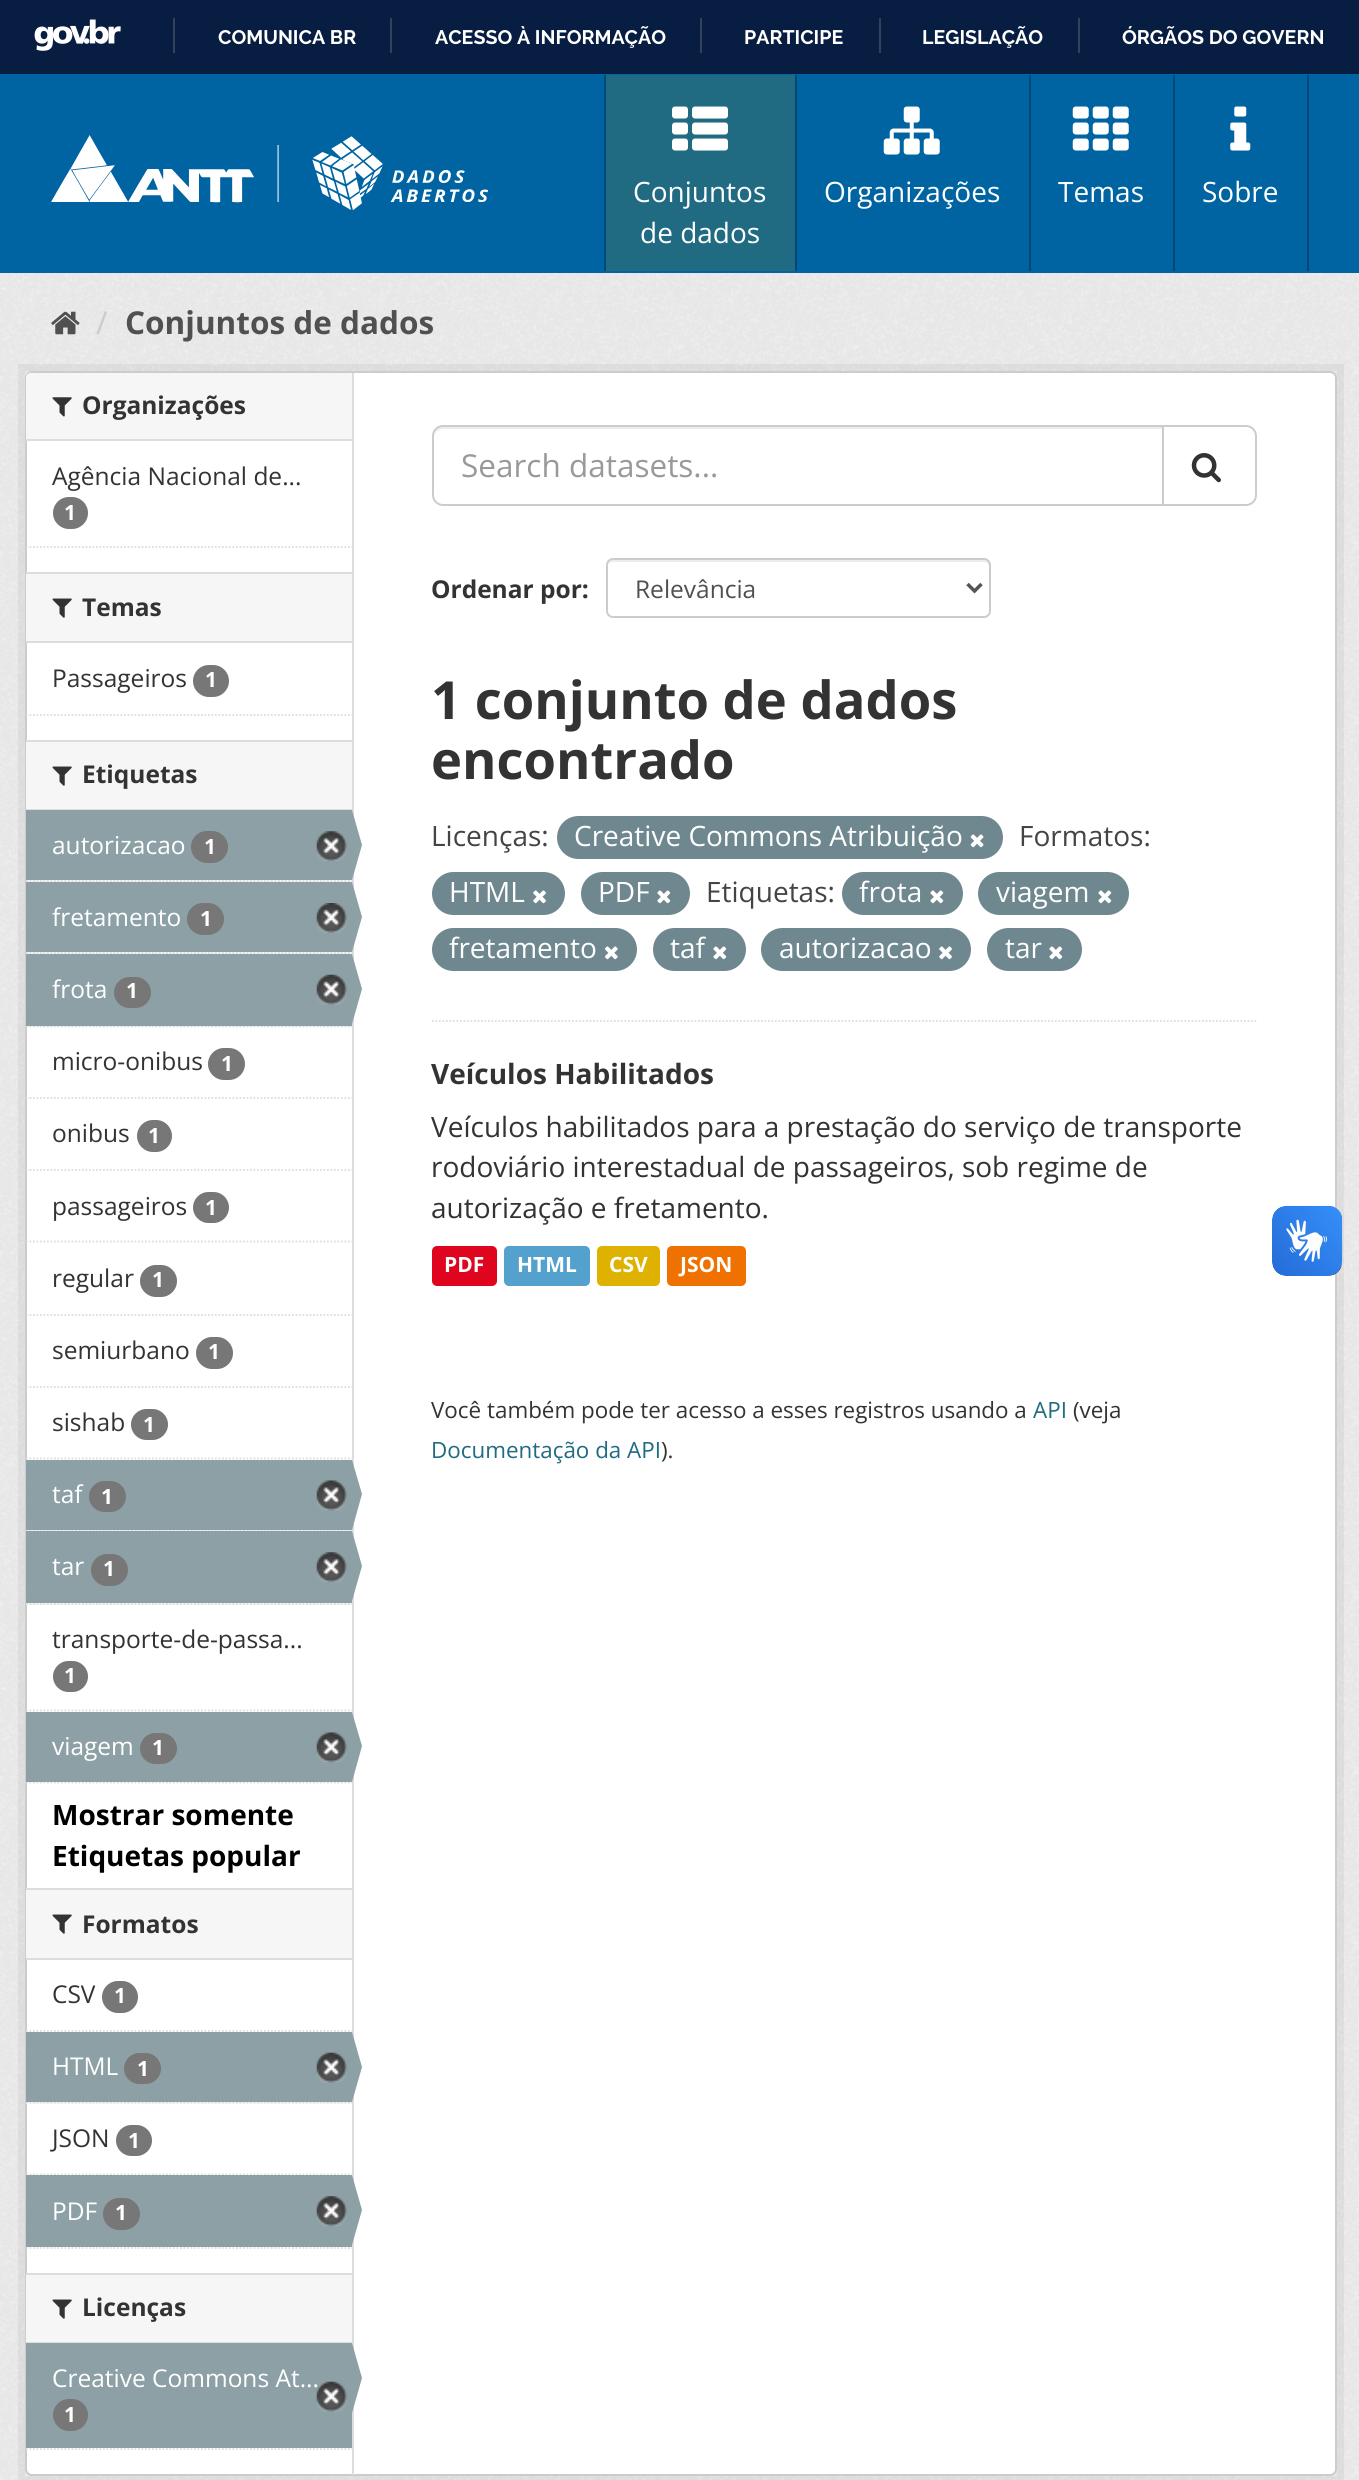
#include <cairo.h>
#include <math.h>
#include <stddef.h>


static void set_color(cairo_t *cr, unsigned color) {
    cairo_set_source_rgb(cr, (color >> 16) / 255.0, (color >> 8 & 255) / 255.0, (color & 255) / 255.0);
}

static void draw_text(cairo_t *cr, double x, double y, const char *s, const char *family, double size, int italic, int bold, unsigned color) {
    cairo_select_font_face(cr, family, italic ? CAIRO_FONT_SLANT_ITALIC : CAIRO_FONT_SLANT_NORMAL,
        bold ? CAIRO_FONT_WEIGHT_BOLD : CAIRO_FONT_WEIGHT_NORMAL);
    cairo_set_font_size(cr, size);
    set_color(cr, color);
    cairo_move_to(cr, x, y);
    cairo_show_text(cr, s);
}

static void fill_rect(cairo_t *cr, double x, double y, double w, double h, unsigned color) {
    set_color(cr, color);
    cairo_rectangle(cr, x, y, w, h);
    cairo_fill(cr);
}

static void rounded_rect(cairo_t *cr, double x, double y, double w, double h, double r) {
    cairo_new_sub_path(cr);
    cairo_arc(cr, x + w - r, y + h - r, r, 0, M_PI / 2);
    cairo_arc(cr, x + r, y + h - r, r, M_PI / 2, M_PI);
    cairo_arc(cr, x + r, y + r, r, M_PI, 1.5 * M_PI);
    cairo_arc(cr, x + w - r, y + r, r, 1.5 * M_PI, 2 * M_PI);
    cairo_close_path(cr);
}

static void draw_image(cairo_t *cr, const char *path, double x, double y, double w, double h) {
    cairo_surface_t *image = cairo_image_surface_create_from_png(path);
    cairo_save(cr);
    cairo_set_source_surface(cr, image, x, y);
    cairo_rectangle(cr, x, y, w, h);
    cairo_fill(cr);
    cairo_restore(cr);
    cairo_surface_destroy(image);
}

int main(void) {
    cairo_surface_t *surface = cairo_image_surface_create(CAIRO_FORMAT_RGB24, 1359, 2480);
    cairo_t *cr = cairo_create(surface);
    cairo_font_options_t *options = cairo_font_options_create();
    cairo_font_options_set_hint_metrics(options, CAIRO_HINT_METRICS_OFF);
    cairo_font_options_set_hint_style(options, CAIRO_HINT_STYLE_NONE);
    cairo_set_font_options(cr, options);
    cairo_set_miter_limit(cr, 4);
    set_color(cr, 0x071D41);
    cairo_paint(cr);
    draw_image(cr, "assets/img1.png", 34, 19, 87, 32);
    fill_rect(cr, 173, 18, 2, 35, 0x32425B);
    draw_text(cr, 218, 44, "COMUNICA BR", "Raleway", 19.6, 0, 1, 0xFFFFFF);
    fill_rect(cr, 390, 18, 2, 35, 0x32425B);
    draw_text(cr, 435, 44, "ACESSO À INFORMAÇÃO", "Raleway", 19.6, 0, 1, 0xFFFFFF);
    fill_rect(cr, 700, 18, 2, 35, 0x32425B);
    draw_text(cr, 744, 44, "PARTICIPE", "Raleway", 19.6, 0, 1, 0xFFFFFF);
    fill_rect(cr, 879, 18, 2, 35, 0x32425B);
    draw_text(cr, 922, 44, "LEGISLAÇÃO", "Raleway", 19.6, 0, 1, 0xFFFFFF);
    fill_rect(cr, 1078, 18, 2, 35, 0x32425B);
    draw_text(cr, 1122, 44, "ÓRGÃOS DO GOVERN", "Raleway", 19.6, 0, 1, 0xFFFFFF);
    fill_rect(cr, 0, 74, 1359, 199, 0x0064A3);
    draw_image(cr, "assets/img2.png", 51, 135, 437, 75);
    fill_rect(cr, 1307, 75, 2, 196, 0x004875);
    fill_rect(cr, 604, 75, 2, 196, 0x004875);
    fill_rect(cr, 606, 75, 189, 196, 0x206B82);
    draw_image(cr, "assets/img3.png", 672, 106, 56, 45);
    draw_text(cr, 633, 202, "Conjuntos", "Open Sans", 28, 0, 0, 0xFFFFFF);
    draw_text(cr, 640, 243, "de dados", "Open Sans", 28, 0, 0, 0xFFFFFF);
    fill_rect(cr, 795, 75, 2, 196, 0x004875);
    draw_image(cr, "assets/img4.png", 883, 106, 57, 49);
    draw_text(cr, 824, 202, "Organizações", "Open Sans", 28, 0, 0, 0xFFFFFF);
    fill_rect(cr, 1029, 75, 2, 196, 0x004875);
    draw_image(cr, "assets/img5.png", 1072, 106, 57, 45);
    draw_text(cr, 1058, 202, "Temas", "Open Sans", 28, 0, 0, 0xFFFFFF);
    fill_rect(cr, 1173, 75, 2, 196, 0x004875);
    draw_image(cr, "assets/img6.png", 1230, 106, 21, 45);
    draw_text(cr, 1202, 202, "Sobre", "Open Sans", 28, 0, 0, 0xFFFFFF);
    fill_rect(cr, 0, 273, 1359, 2207, 0xEEEEEE);
    draw_image(cr, "assets/img7.png", 0, 273, 1359, 2207);
    draw_image(cr, "assets/img8.png", 51, 311, 29, 24);
    draw_text(cr, 96, 334, "/", "Open Sans", 31.5, 0, 0, 0xCCCCCC);
    draw_text(cr, 125, 334, "Conjuntos de dados", "Open Sans", 31.5, 0, 1, 0x505050);
    cairo_rectangle(cr, 21.5, 367.5, 1319, 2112);
    cairo_set_source_rgba(cr, 0, 0, 0, 0.05);
    cairo_set_line_width(cr, 7);
    cairo_stroke(cr);
    set_color(cr, 0xFFFFFF);
    rounded_rect(cr, 26, 372, 1310, 2103, 6);
    cairo_fill_preserve(cr);
    set_color(cr, 0xCCCCCC);
    cairo_set_line_width(cr, 2);
    cairo_stroke(cr);
    set_color(cr, 0xF6F6F6);
    cairo_new_path(cr);
    cairo_move_to(cr, 31, 373);
    cairo_line_to(cr, 352, 373);
    cairo_line_to(cr, 352, 441);
    cairo_line_to(cr, 26, 441);
    cairo_line_to(cr, 26, 378);
    cairo_curve_to(cr, 26, 375, 28, 373, 31, 373);
    cairo_close_path(cr);
    cairo_fill(cr);
    fill_rect(cr, 26, 439, 326, 2, 0xDDDDDD);
    draw_image(cr, "assets/img9.png", 52, 397, 20, 20);
    draw_text(cr, 82, 414, "Organizações", "Open Sans", 24.5, 0, 1, 0x333333);
    draw_text(cr, 52, 485, "Agência Nacional de...", "Open Sans", 24.5, 0, 0, 0x333333);
    set_color(cr, 0x777777);
    rounded_rect(cr, 53, 497, 35, 32, 16);
    cairo_fill(cr);
    draw_text(cr, 64, 520, "1", "Open Sans", 21, 0, 1, 0xFFFFFF);
    cairo_new_path(cr);
    cairo_move_to(cr, 26, 547);
    cairo_line_to(cr, 352, 547);
    set_color(cr, 0xDDDDDD);
    cairo_set_line_width(cr, 1.8);
    cairo_set_dash(cr, (double[]){1.75, 1.75}, 2, 0);
    cairo_stroke(cr);
    fill_rect(cr, 26, 574, 326, 67, 0xF6F6F6);
    fill_rect(cr, 26, 572, 326, 2, 0xDDDDDD);
    fill_rect(cr, 26, 641, 326, 2, 0xDDDDDD);
    draw_image(cr, "assets/img10.png", 52, 598, 20, 20);
    draw_text(cr, 82, 616, "Temas", "Open Sans", 24.5, 0, 1, 0x333333);
    draw_text(cr, 52, 687, "Passageiros", "Open Sans", 24.5, 0, 0, 0x333333);
    set_color(cr, 0x777777);
    rounded_rect(cr, 193, 665, 36, 32, 16);
    cairo_fill(cr);
    draw_text(cr, 205, 687, "1", "Open Sans", 21, 0, 1, 0xFFFFFF);
    cairo_new_path(cr);
    cairo_move_to(cr, 26, 715);
    cairo_line_to(cr, 352, 715);
    set_color(cr, 0xDDDDDD);
    cairo_stroke(cr);
    fill_rect(cr, 26, 742, 326, 67, 0xF6F6F6);
    fill_rect(cr, 26, 740, 326, 2, 0xDDDDDD);
    fill_rect(cr, 26, 809, 326, 1, 0xDDDDDD);
    draw_image(cr, "assets/img10.png", 52, 766, 20, 20);
    draw_text(cr, 82, 783, "Etiquetas", "Open Sans", 24.5, 0, 1, 0x333333);
    fill_rect(cr, 26, 880, 326, 2, 0xF6F6F6);
    cairo_new_path(cr);
    cairo_move_to(cr, 26, 881);
    cairo_line_to(cr, 352, 881);
    set_color(cr, 0xDDDDDD);
    cairo_stroke(cr);
    fill_rect(cr, 26, 810, 326, 70, 0x8CA0A6);
    draw_text(cr, 52, 854, "autorizacao", "Open Sans", 24.5, 0, 0, 0xFFFFFF);
    set_color(cr, 0x777777);
    rounded_rect(cr, 191, 831, 37, 32, 16);
    cairo_fill(cr);
    draw_text(cr, 204, 854, "1", "Open Sans", 21, 0, 1, 0xFFFFFF);
    draw_image(cr, "assets/img11.png", 316, 831, 31, 30);
    fill_rect(cr, 352, 373, 2, 2102, 0xDDDDDD);
    set_color(cr, 0x8CA0A6);
    cairo_new_path(cr);
    cairo_move_to(cr, 352, 880);
    cairo_line_to(cr, 352, 810);
    cairo_line_to(cr, 362, 845);
    cairo_close_path(cr);
    cairo_fill(cr);
    fill_rect(cr, 26, 952, 326, 2, 0xF6F6F6);
    cairo_new_path(cr);
    cairo_move_to(cr, 26, 953);
    cairo_line_to(cr, 352, 953);
    set_color(cr, 0xDDDDDD);
    cairo_stroke(cr);
    fill_rect(cr, 26, 882, 326, 70, 0x8CA0A6);
    draw_text(cr, 52, 926, "fretamento", "Open Sans", 24.5, 0, 0, 0xFFFFFF);
    set_color(cr, 0x777777);
    rounded_rect(cr, 187, 903, 37, 32, 16);
    cairo_fill(cr);
    draw_text(cr, 200, 926, "1", "Open Sans", 21, 0, 1, 0xFFFFFF);
    draw_image(cr, "assets/img12.png", 316, 903, 31, 30);
    set_color(cr, 0x8CA0A6);
    cairo_new_path(cr);
    cairo_move_to(cr, 352, 952);
    cairo_line_to(cr, 352, 882);
    cairo_line_to(cr, 362, 917);
    cairo_close_path(cr);
    cairo_fill(cr);
    fill_rect(cr, 27, 1026, 325, 1, 0xF6F6F6);
    cairo_new_path(cr);
    cairo_move_to(cr, 26, 1026.5);
    cairo_line_to(cr, 352, 1026.5);
    set_color(cr, 0xDDDDDD);
    cairo_stroke(cr);
    fill_rect(cr, 26, 954, 326, 72, 0x8CA0A6);
    draw_text(cr, 52, 998, "frota", "Open Sans", 24.5, 0, 0, 0xFFFFFF);
    set_color(cr, 0x777777);
    rounded_rect(cr, 114, 977, 37, 31, 15.5);
    cairo_fill(cr);
    draw_text(cr, 126, 998, "1", "Open Sans", 21, 0, 1, 0xFFFFFF);
    draw_image(cr, "assets/img13.png", 316, 974, 31, 31);
    set_color(cr, 0x8CA0A6);
    cairo_new_path(cr);
    cairo_move_to(cr, 352, 1024);
    cairo_line_to(cr, 352, 954);
    cairo_line_to(cr, 362, 989);
    cairo_close_path(cr);
    cairo_fill(cr);
    cairo_new_path(cr);
    cairo_move_to(cr, 26, 1098);
    cairo_line_to(cr, 352, 1098);
    set_color(cr, 0xDDDDDD);
    cairo_stroke(cr);
    draw_text(cr, 52, 1070, "micro-onibus", "Open Sans", 24.5, 0, 0, 0x333333);
    set_color(cr, 0x777777);
    rounded_rect(cr, 208, 1048, 37, 32, 16);
    cairo_fill(cr);
    draw_text(cr, 221, 1071, "1", "Open Sans", 21, 0, 1, 0xFFFFFF);
    cairo_new_path(cr);
    cairo_move_to(cr, 26, 1170);
    cairo_line_to(cr, 352, 1170);
    set_color(cr, 0xDDDDDD);
    cairo_stroke(cr);
    draw_text(cr, 52, 1142, "onibus", "Open Sans", 24.5, 0, 0, 0x333333);
    set_color(cr, 0x777777);
    rounded_rect(cr, 137, 1120, 35, 32, 16);
    cairo_fill(cr);
    draw_text(cr, 148, 1143, "1", "Open Sans", 21, 0, 1, 0xFFFFFF);
    cairo_new_path(cr);
    cairo_move_to(cr, 26, 1241.5);
    cairo_line_to(cr, 352, 1241.5);
    set_color(cr, 0xDDDDDD);
    cairo_stroke(cr);
    draw_text(cr, 52, 1215, "passageiros", "Open Sans", 24.5, 0, 0, 0x333333);
    set_color(cr, 0x777777);
    rounded_rect(cr, 193, 1192, 36, 31, 15.5);
    cairo_fill(cr);
    draw_text(cr, 205, 1215, "1", "Open Sans", 21, 0, 1, 0xFFFFFF);
    cairo_new_path(cr);
    cairo_move_to(cr, 26, 1315);
    cairo_line_to(cr, 352, 1315);
    set_color(cr, 0xDDDDDD);
    cairo_stroke(cr);
    draw_text(cr, 52, 1287, "regular", "Open Sans", 24.5, 0, 0, 0x333333);
    set_color(cr, 0x777777);
    rounded_rect(cr, 140, 1265, 37, 32, 16);
    cairo_fill(cr);
    draw_text(cr, 152, 1287, "1", "Open Sans", 21, 0, 1, 0xFFFFFF);
    cairo_new_path(cr);
    cairo_move_to(cr, 26, 1387);
    cairo_line_to(cr, 352, 1387);
    set_color(cr, 0xDDDDDD);
    cairo_stroke(cr);
    draw_text(cr, 52, 1359, "semiurbano", "Open Sans", 24.5, 0, 0, 0x333333);
    set_color(cr, 0x777777);
    rounded_rect(cr, 196, 1337, 37, 32, 16);
    cairo_fill(cr);
    draw_text(cr, 208, 1359, "1", "Open Sans", 21, 0, 1, 0xFFFFFF);
    cairo_new_path(cr);
    cairo_move_to(cr, 26, 1458.5);
    cairo_line_to(cr, 352, 1458.5);
    set_color(cr, 0xDDDDDD);
    cairo_stroke(cr);
    draw_text(cr, 52, 1431, "sishab", "Open Sans", 24.5, 0, 0, 0x333333);
    set_color(cr, 0x777777);
    rounded_rect(cr, 131, 1409, 37, 31, 15.5);
    cairo_fill(cr);
    draw_text(cr, 143, 1432, "1", "Open Sans", 21, 0, 1, 0xFFFFFF);
    fill_rect(cr, 27, 1530, 325, 1, 0xF6F6F6);
    cairo_new_path(cr);
    cairo_move_to(cr, 26, 1530.5);
    cairo_line_to(cr, 352, 1530.5);
    set_color(cr, 0xDDDDDD);
    cairo_stroke(cr);
    fill_rect(cr, 26, 1460, 326, 70, 0x8CA0A6);
    draw_text(cr, 52, 1503, "taf", "Open Sans", 24.5, 0, 0, 0xFFFFFF);
    set_color(cr, 0x777777);
    rounded_rect(cr, 89, 1481, 37, 31, 15.5);
    cairo_fill(cr);
    draw_text(cr, 101, 1504, "1", "Open Sans", 21, 0, 1, 0xFFFFFF);
    draw_image(cr, "assets/img14.png", 316, 1480, 31, 31);
    set_color(cr, 0x8CA0A6);
    cairo_new_path(cr);
    cairo_move_to(cr, 352, 1530);
    cairo_line_to(cr, 352, 1460);
    cairo_line_to(cr, 362, 1494);
    cairo_close_path(cr);
    cairo_fill(cr);
    fill_rect(cr, 26, 1603, 326, 2, 0xF6F6F6);
    cairo_new_path(cr);
    cairo_move_to(cr, 26, 1604);
    cairo_line_to(cr, 352, 1604);
    set_color(cr, 0xDDDDDD);
    cairo_stroke(cr);
    fill_rect(cr, 26, 1531, 326, 72, 0x8CA0A6);
    draw_text(cr, 52, 1575, "tar", "Open Sans", 24.5, 0, 0, 0xFFFFFF);
    set_color(cr, 0x777777);
    rounded_rect(cr, 91, 1554, 37, 32, 16);
    cairo_fill(cr);
    draw_text(cr, 103, 1576, "1", "Open Sans", 21, 0, 1, 0xFFFFFF);
    draw_image(cr, "assets/img11.png", 316, 1552, 31, 30);
    set_color(cr, 0x8CA0A6);
    cairo_new_path(cr);
    cairo_move_to(cr, 352, 1601);
    cairo_line_to(cr, 352, 1531);
    cairo_line_to(cr, 362, 1566);
    cairo_close_path(cr);
    cairo_fill(cr);
    cairo_new_path(cr);
    cairo_move_to(cr, 26, 1710.5);
    cairo_line_to(cr, 352, 1710.5);
    set_color(cr, 0xDDDDDD);
    cairo_stroke(cr);
    draw_text(cr, 52, 1648, "transporte-de-passa...", "Open Sans", 24.5, 0, 0, 0x333333);
    set_color(cr, 0x777777);
    rounded_rect(cr, 53, 1661, 35, 31, 15.5);
    cairo_fill(cr);
    draw_text(cr, 64, 1683, "1", "Open Sans", 21, 0, 1, 0xFFFFFF);
    cairo_new_path(cr);
    cairo_move_to(cr, 26, 1782.5);
    cairo_line_to(cr, 352, 1782.5);
    set_color(cr, 0xDDDDDD);
    cairo_stroke(cr);
    fill_rect(cr, 26, 1712, 326, 70, 0x8CA0A6);
    draw_text(cr, 52, 1755, "viagem", "Open Sans", 24.5, 0, 0, 0xFFFFFF);
    set_color(cr, 0x777777);
    rounded_rect(cr, 140, 1733, 37, 31, 15.5);
    cairo_fill(cr);
    draw_text(cr, 152, 1755, "1", "Open Sans", 21, 0, 1, 0xFFFFFF);
    draw_image(cr, "assets/img14.png", 316, 1732, 31, 31);
    set_color(cr, 0x8CA0A6);
    cairo_new_path(cr);
    cairo_move_to(cr, 352, 1782);
    cairo_line_to(cr, 352, 1712);
    cairo_line_to(cr, 362, 1746);
    cairo_close_path(cr);
    cairo_fill(cr);
    draw_text(cr, 52, 1825, "Mostrar somente", "Open Sans", 28, 0, 1, 0x000000);
    draw_text(cr, 52, 1866, "Etiquetas popular", "Open Sans", 28, 0, 1, 0x000000);
    fill_rect(cr, 26, 1890, 326, 68, 0xF6F6F6);
    fill_rect(cr, 26, 1888, 326, 2, 0xDDDDDD);
    fill_rect(cr, 26, 1958, 326, 2, 0xDDDDDD);
    draw_image(cr, "assets/img10.png", 52, 1914, 20, 20);
    draw_text(cr, 82, 1933, "Formatos", "Open Sans", 24.5, 0, 1, 0x333333);
    cairo_new_path(cr);
    cairo_move_to(cr, 26, 2031);
    cairo_line_to(cr, 352, 2031);
    set_color(cr, 0xDDDDDD);
    cairo_stroke(cr);
    draw_text(cr, 52, 2003, "CSV", "Open Sans", 24.5, 0, 0, 0x333333);
    set_color(cr, 0x777777);
    rounded_rect(cr, 102, 1981, 36, 32, 16);
    cairo_fill(cr);
    draw_text(cr, 114, 2003, "1", "Open Sans", 21, 0, 1, 0xFFFFFF);
    fill_rect(cr, 26, 2102, 326, 2, 0xF6F6F6);
    cairo_new_path(cr);
    cairo_move_to(cr, 26, 2102.5);
    cairo_line_to(cr, 352, 2102.5);
    set_color(cr, 0xDDDDDD);
    cairo_stroke(cr);
    fill_rect(cr, 26, 2032, 326, 70, 0x8CA0A6);
    draw_text(cr, 52, 2075, "HTML", "Open Sans", 24.5, 0, 0, 0xFFFFFF);
    set_color(cr, 0x777777);
    rounded_rect(cr, 124, 2053, 37, 31, 15.5);
    cairo_fill(cr);
    draw_text(cr, 137, 2076, "1", "Open Sans", 21, 0, 1, 0xFFFFFF);
    draw_image(cr, "assets/img13.png", 316, 2052, 31, 31);
    set_color(cr, 0x8CA0A6);
    cairo_new_path(cr);
    cairo_move_to(cr, 352, 2102);
    cairo_line_to(cr, 352, 2032);
    cairo_line_to(cr, 362, 2067);
    cairo_close_path(cr);
    cairo_fill(cr);
    cairo_new_path(cr);
    cairo_move_to(cr, 26, 2174.5);
    cairo_line_to(cr, 352, 2174.5);
    set_color(cr, 0xDDDDDD);
    cairo_stroke(cr);
    draw_text(cr, 52, 2147, "JSON", "Open Sans", 24.5, 0, 0, 0x333333);
    set_color(cr, 0x777777);
    rounded_rect(cr, 116, 2125, 36, 31, 15.5);
    cairo_fill(cr);
    draw_text(cr, 128, 2148, "1", "Open Sans", 21, 0, 1, 0xFFFFFF);
    fill_rect(cr, 26, 2175, 326, 72, 0x8CA0A6);
    draw_text(cr, 52, 2220, "PDF", "Open Sans", 24.5, 0, 0, 0xFFFFFF);
    set_color(cr, 0x777777);
    rounded_rect(cr, 103, 2198, 37, 32, 16);
    cairo_fill(cr);
    draw_text(cr, 115, 2220, "1", "Open Sans", 21, 0, 1, 0xFFFFFF);
    draw_image(cr, "assets/img11.png", 316, 2196, 31, 30);
    set_color(cr, 0x8CA0A6);
    cairo_new_path(cr);
    cairo_move_to(cr, 352, 2245);
    cairo_line_to(cr, 352, 2175);
    cairo_line_to(cr, 362, 2210);
    cairo_close_path(cr);
    cairo_fill(cr);
    cairo_new_path(cr);
    cairo_move_to(cr, 26, 2248);
    cairo_line_to(cr, 352, 2248);
    set_color(cr, 0xDDDDDD);
    cairo_stroke(cr);
    fill_rect(cr, 26, 2275, 326, 67, 0xF6F6F6);
    fill_rect(cr, 26, 2273, 326, 2, 0xDDDDDD);
    fill_rect(cr, 26, 2342, 326, 1, 0xDDDDDD);
    draw_image(cr, "assets/img10.png", 52, 2299, 20, 20);
    draw_text(cr, 82, 2316, "Licenças", "Open Sans", 24.5, 0, 1, 0x333333);
    fill_rect(cr, 26, 2343, 326, 105, 0x8CA0A6);
    draw_text(cr, 52, 2387, "Creative Commons At...", "Open Sans", 24.5, 0, 0, 0xFFFFFF);
    set_color(cr, 0x8CA0A6);
    cairo_new_path(cr);
    cairo_move_to(cr, 352, 2413);
    cairo_line_to(cr, 352, 2343);
    cairo_line_to(cr, 362, 2378);
    cairo_close_path(cr);
    cairo_fill(cr);
    draw_image(cr, "assets/img15.png", 316, 2381, 31, 31);
    set_color(cr, 0x777777);
    rounded_rect(cr, 53, 2399, 35, 32, 16);
    cairo_fill(cr);
    draw_text(cr, 64, 2422, "1", "Open Sans", 21, 0, 1, 0xFFFFFF);
    cairo_new_path(cr);
    cairo_move_to(cr, 26, 2449);
    cairo_line_to(cr, 352, 2449);
    set_color(cr, 0xDDDDDD);
    cairo_stroke(cr);
    cairo_new_path(cr);
    cairo_move_to(cr, 432, 1021);
    cairo_line_to(cr, 1256.5, 1021);
    cairo_stroke(cr);
    set_color(cr, 0xECECEC);
    cairo_new_path(cr);
    cairo_move_to(cr, 443, 429);
    cairo_line_to(cr, 1162, 429);
    cairo_line_to(cr, 1162, 427);
    cairo_line_to(cr, 443, 427);
    cairo_curve_to(cr, 437, 427, 434, 432, 434, 438);
    cairo_curve_to(cr, 434, 433, 438, 429, 443, 429);
    cairo_close_path(cr);
    cairo_fill(cr);
    cairo_new_path(cr);
    cairo_move_to(cr, 443, 426);
    cairo_line_to(cr, 1163, 426);
    cairo_line_to(cr, 1163, 505);
    cairo_line_to(cr, 443, 505);
    cairo_curve_to(cr, 437.5, 505, 433, 500.5, 433, 495);
    cairo_line_to(cr, 433, 436);
    cairo_curve_to(cr, 433, 430.5, 437.5, 426, 443, 426);
    cairo_close_path(cr);
    set_color(cr, 0xCCCCCC);
    cairo_set_line_width(cr, 2);
    cairo_set_dash(cr, NULL, 0, 0);
    cairo_stroke(cr);
    draw_text(cr, 461, 477, "Search datasets...", "Open Sans", 31.5, 0, 0, 0x999999);
    set_color(cr, 0xFFFFFF);
    cairo_new_path(cr);
    cairo_move_to(cr, 1163, 426);
    cairo_line_to(cr, 1246, 426);
    cairo_curve_to(cr, 1251.5, 426, 1256, 430.5, 1256, 436);
    cairo_line_to(cr, 1256, 495);
    cairo_curve_to(cr, 1256, 500.5, 1251.5, 505, 1246, 505);
    cairo_line_to(cr, 1163, 505);
    cairo_close_path(cr);
    cairo_fill_preserve(cr);
    set_color(cr, 0xCCCCCC);
    cairo_stroke(cr);
    draw_image(cr, "assets/img16.png", 1191, 453, 30, 30);
    draw_text(cr, 431, 598, "Ordenar por:", "Open Sans", 24.5, 0, 1, 0x333333);
    set_color(cr, 0xECECEC);
    cairo_new_path(cr);
    cairo_move_to(cr, 612, 562);
    cairo_line_to(cr, 984, 562);
    cairo_curve_to(cr, 986, 562, 989, 564, 989, 567);
    cairo_line_to(cr, 989, 565);
    cairo_curve_to(cr, 989, 562, 987, 560, 984, 560);
    cairo_line_to(cr, 612, 560);
    cairo_curve_to(cr, 609, 560, 607, 562, 607, 565);
    cairo_line_to(cr, 607, 567);
    cairo_curve_to(cr, 607, 564, 610, 562, 612, 562);
    cairo_close_path(cr);
    cairo_fill(cr);
    rounded_rect(cr, 607, 559, 383, 58, 6);
    set_color(cr, 0xCCCCCC);
    cairo_stroke(cr);
    cairo_new_path(cr);
    cairo_move_to(cr, 967.5, 584);
    cairo_line_to(cr, 974.5, 591);
    cairo_line_to(cr, 981.5, 584);
    set_color(cr, 0x555555);
    cairo_set_line_width(cr, 3.5);
    cairo_stroke(cr);
    draw_text(cr, 635, 598, "Relevância", "Open Sans", 24.5, 0, 0, 0x505050);
    draw_text(cr, 431, 719, "1 conjunto de dados", "Open Sans", 52.5, 0, 1, 0x333333);
    draw_text(cr, 431, 779, "encontrado", "Open Sans", 52.5, 0, 1, 0x333333);
    draw_text(cr, 431, 846, "Licenças:", "Open Sans", 28, 0, 0, 0x444444);
    set_color(cr, 0x6F8890);
    rounded_rect(cr, 557, 816, 446, 43, 21.5);
    cairo_fill(cr);
    draw_text(cr, 574, 846, "Creative Commons Atribuição", "Open Sans", 28, 0, 0, 0xFFFFFF);
    draw_image(cr, "assets/img17.png", 970, 834, 14, 14);
    draw_text(cr, 1019, 846, "Formatos:", "Open Sans", 28, 0, 0, 0x444444);
    set_color(cr, 0x6F8890);
    rounded_rect(cr, 432, 872, 133, 43, 21.5);
    cairo_fill(cr);
    draw_text(cr, 449, 902, "HTML", "Open Sans", 28, 0, 0, 0xFFFFFF);
    draw_image(cr, "assets/img18.png", 533, 890, 13, 14);
    set_color(cr, 0x6F8890);
    rounded_rect(cr, 581, 872, 109, 43, 21.5);
    cairo_fill(cr);
    draw_text(cr, 598, 902, "PDF", "Open Sans", 28, 0, 0, 0xFFFFFF);
    draw_image(cr, "assets/img19.png", 657, 890, 14, 14);
    draw_text(cr, 706, 902, "Etiquetas:", "Open Sans", 28, 0, 0, 0x444444);
    set_color(cr, 0x6F8890);
    rounded_rect(cr, 842, 872, 121, 43, 21.5);
    cairo_fill(cr);
    draw_text(cr, 859, 902, "frota", "Open Sans", 28, 0, 0, 0xFFFFFF);
    draw_image(cr, "assets/img20.png", 930, 890, 14, 14);
    set_color(cr, 0x6F8890);
    rounded_rect(cr, 978, 872, 151, 43, 21.5);
    cairo_fill(cr);
    draw_text(cr, 996, 902, "viagem", "Open Sans", 28, 0, 0, 0xFFFFFF);
    draw_image(cr, "assets/img19.png", 1098, 890, 14, 14);
    set_color(cr, 0x6F8890);
    rounded_rect(cr, 432, 928, 205, 43, 21.5);
    cairo_fill(cr);
    draw_text(cr, 449, 958, "fretamento", "Open Sans", 28, 0, 0, 0xFFFFFF);
    draw_image(cr, "assets/img21.png", 605, 946, 13, 14);
    set_color(cr, 0x6F8890);
    rounded_rect(cr, 653, 928, 93, 43, 21.5);
    cairo_fill(cr);
    draw_text(cr, 670, 958, "taf", "Open Sans", 28, 0, 0, 0xFFFFFF);
    draw_image(cr, "assets/img22.png", 713, 946, 14, 14);
    set_color(cr, 0x6F8890);
    rounded_rect(cr, 761, 928, 210, 43, 21.5);
    cairo_fill(cr);
    draw_text(cr, 779, 958, "autorizacao", "Open Sans", 28, 0, 0, 0xFFFFFF);
    draw_image(cr, "assets/img23.png", 939, 946, 13, 14);
    set_color(cr, 0x6F8890);
    rounded_rect(cr, 987, 928, 95, 43, 21.5);
    cairo_fill(cr);
    draw_text(cr, 1005, 958, "tar", "Open Sans", 28, 0, 0, 0xFFFFFF);
    draw_image(cr, "assets/img22.png", 1049, 946, 14, 14);
    draw_text(cr, 431, 1084, "Veículos Habilitados", "Open Sans", 28, 0, 1, 0x333333);
    draw_text(cr, 431, 1137, "Veículos habilitados para a prestação do serviço de transporte", "Open Sans", 28, 0, 0, 0x333333);
    draw_text(cr, 431, 1177, "rodoviário interestadual de passageiros, sob regime de", "Open Sans", 28, 0, 0, 0x333333);
    draw_text(cr, 431, 1218, "autorização e fretamento.", "Open Sans", 28, 0, 0, 0x333333);
    set_color(cr, 0xE0051E);
    rounded_rect(cr, 432, 1246, 65, 40, 5);
    cairo_fill(cr);
    draw_text(cr, 444, 1272, "PDF", "Open Sans", 21, 0, 1, 0xFFFFFF);
    set_color(cr, 0x55A1CE);
    rounded_rect(cr, 504, 1246, 86, 40, 5);
    cairo_fill(cr);
    draw_text(cr, 517, 1272, "HTML", "Open Sans", 21, 0, 1, 0xFFFFFF);
    set_color(cr, 0xDFB100);
    rounded_rect(cr, 597, 1246, 63, 40, 5);
    cairo_fill(cr);
    draw_text(cr, 609, 1272, "CSV", "Open Sans", 21, 0, 1, 0xFFFFFF);
    set_color(cr, 0xEF7100);
    rounded_rect(cr, 667, 1246, 79, 40, 5);
    cairo_fill(cr);
    draw_text(cr, 680, 1272, "JSON", "Open Sans", 21, 0, 1, 0xFFFFFF);
    draw_text(cr, 431, 1418, "Você também pode ter acesso a esses registros usando a", "Open Sans", 22.4, 0, 0, 0x333333);
    draw_text(cr, 1033, 1418, "API", "Open Sans", 22.4, 0, 0, 0x206B82);
    draw_text(cr, 1073, 1418, "(veja", "Open Sans", 22.4, 0, 0, 0x333333);
    draw_text(cr, 431, 1458, "Documentação da API", "Open Sans", 22.4, 0, 0, 0x206B82);
    draw_text(cr, 661, 1458, ").", "Open Sans", 22.4, 0, 0, 0x333333);
    draw_image(cr, "assets/img24.png", 1272, 1205, 71, 71);
    draw_image(cr, "assets/img25.png", 1272, 1206, 70, 70);
    cairo_surface_write_to_png(surface, "output.png");
    cairo_font_options_destroy(options);
    cairo_destroy(cr);
    cairo_surface_destroy(surface);
    return 0;
}
